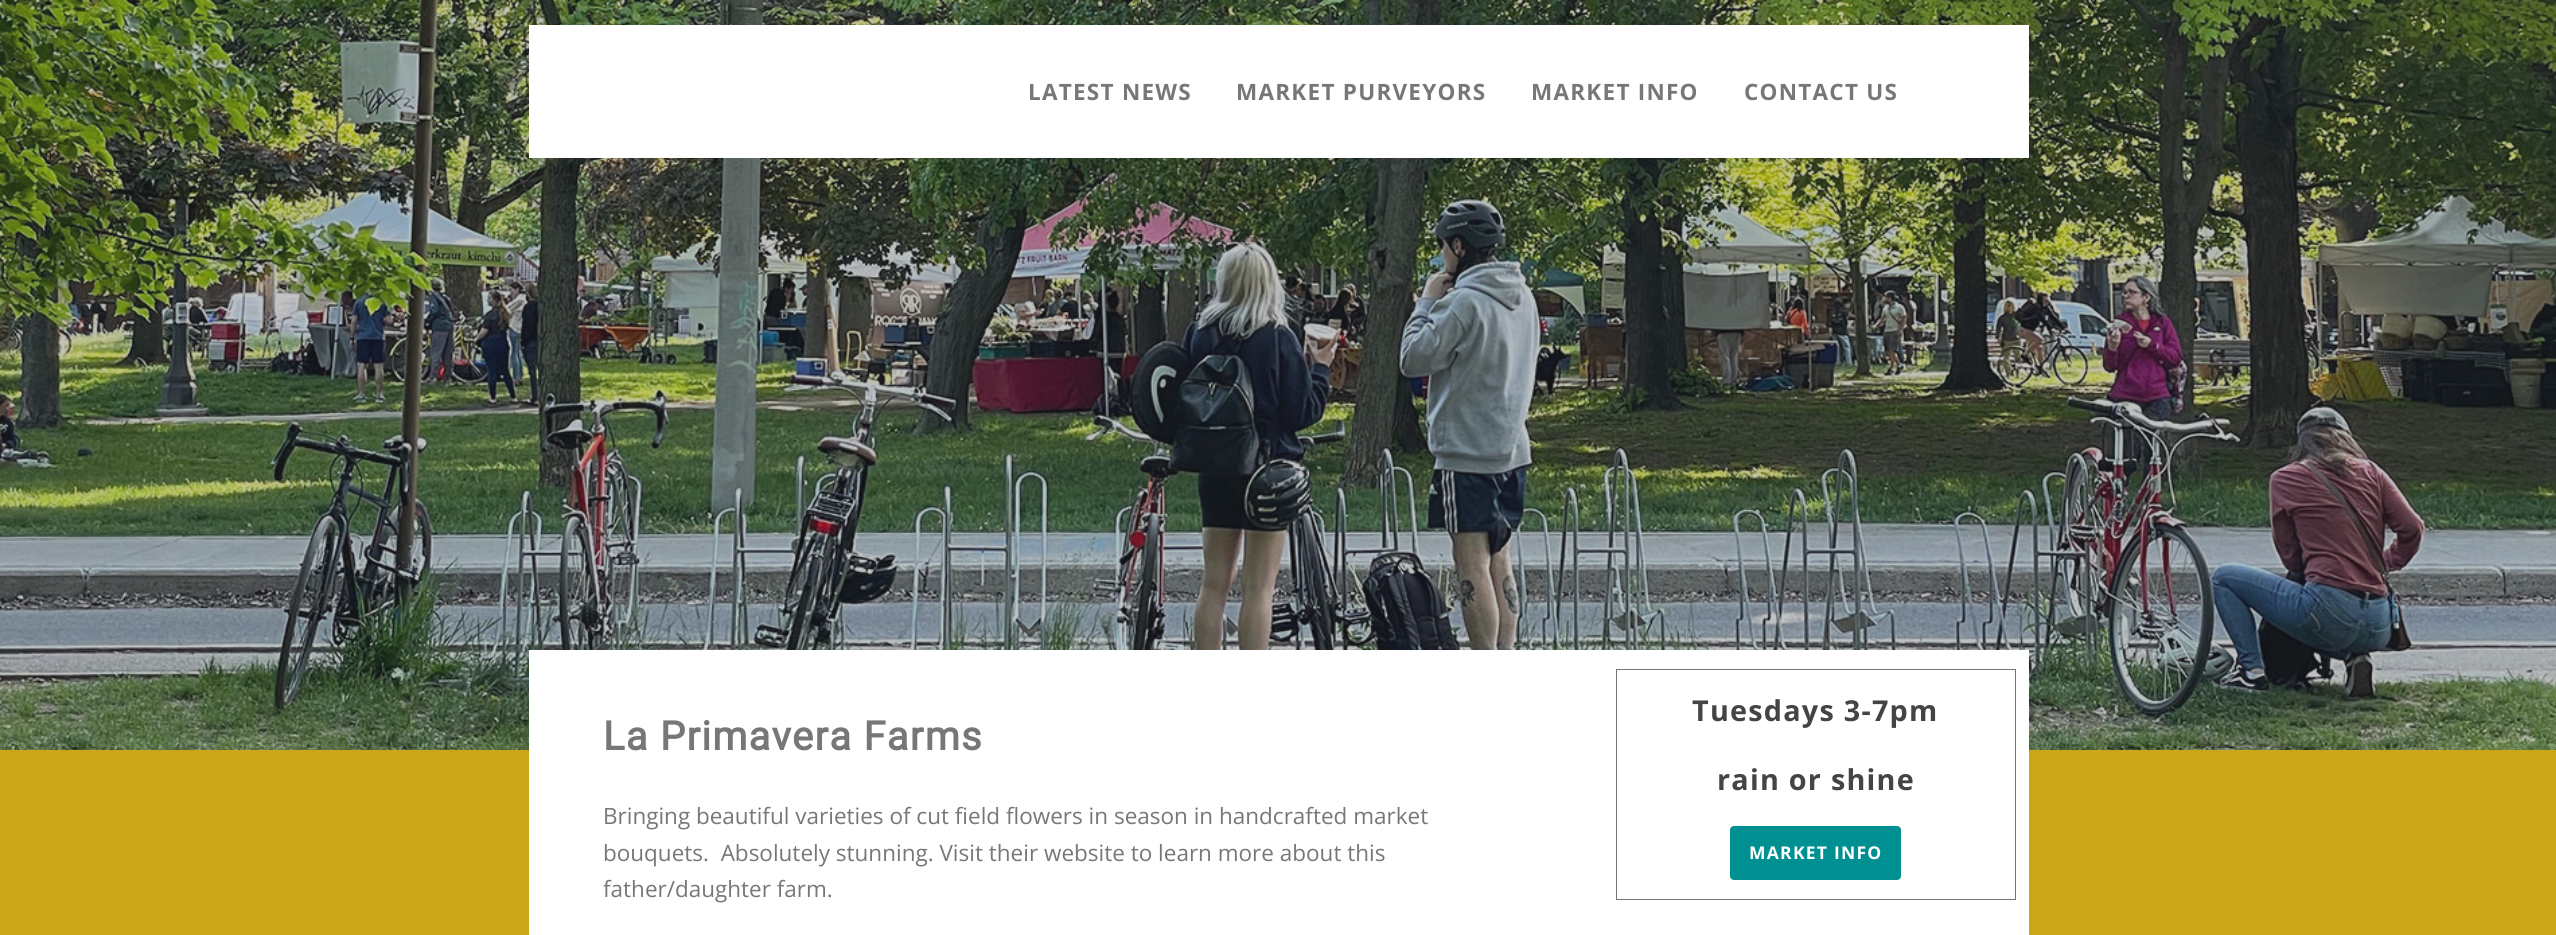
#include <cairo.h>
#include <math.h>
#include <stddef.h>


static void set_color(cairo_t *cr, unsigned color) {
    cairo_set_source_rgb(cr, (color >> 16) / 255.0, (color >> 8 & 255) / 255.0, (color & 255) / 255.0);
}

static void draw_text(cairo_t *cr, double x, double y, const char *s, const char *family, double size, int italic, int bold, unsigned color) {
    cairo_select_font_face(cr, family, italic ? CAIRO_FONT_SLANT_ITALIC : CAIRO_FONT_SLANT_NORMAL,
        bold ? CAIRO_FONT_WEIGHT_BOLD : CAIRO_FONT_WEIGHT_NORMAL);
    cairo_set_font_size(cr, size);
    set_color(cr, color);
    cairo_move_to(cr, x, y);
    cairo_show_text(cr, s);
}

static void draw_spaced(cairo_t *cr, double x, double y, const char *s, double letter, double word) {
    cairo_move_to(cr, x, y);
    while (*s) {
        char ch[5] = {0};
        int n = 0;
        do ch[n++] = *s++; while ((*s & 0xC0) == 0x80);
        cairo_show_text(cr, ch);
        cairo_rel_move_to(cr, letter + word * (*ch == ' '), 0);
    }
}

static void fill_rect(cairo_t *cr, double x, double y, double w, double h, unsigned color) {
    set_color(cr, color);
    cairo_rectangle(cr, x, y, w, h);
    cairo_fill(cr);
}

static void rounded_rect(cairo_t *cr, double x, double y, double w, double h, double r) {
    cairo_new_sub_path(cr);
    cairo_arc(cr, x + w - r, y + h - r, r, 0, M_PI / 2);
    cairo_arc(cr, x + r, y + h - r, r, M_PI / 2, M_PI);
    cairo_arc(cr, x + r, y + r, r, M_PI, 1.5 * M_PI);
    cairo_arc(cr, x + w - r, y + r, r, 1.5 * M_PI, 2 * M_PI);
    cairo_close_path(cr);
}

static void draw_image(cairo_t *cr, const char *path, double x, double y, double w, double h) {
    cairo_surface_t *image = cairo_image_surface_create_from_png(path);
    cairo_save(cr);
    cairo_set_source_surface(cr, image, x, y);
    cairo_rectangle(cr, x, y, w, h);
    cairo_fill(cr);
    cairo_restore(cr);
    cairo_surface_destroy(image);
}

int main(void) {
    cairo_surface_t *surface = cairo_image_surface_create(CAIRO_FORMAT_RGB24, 2556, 935);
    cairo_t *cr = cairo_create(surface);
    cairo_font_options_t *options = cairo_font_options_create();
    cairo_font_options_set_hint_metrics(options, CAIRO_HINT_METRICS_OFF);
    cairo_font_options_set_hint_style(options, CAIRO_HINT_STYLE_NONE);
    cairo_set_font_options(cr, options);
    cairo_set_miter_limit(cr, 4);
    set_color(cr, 0xCAA618);
    cairo_paint(cr);
    draw_image(cr, "assets/img1.png", 0, 0, 2556, 750);
    fill_rect(cr, 529, 25, 1500, 133, 0xFFFFFF);
    cairo_select_font_face(cr, "Open Sans", CAIRO_FONT_SLANT_NORMAL, CAIRO_FONT_WEIGHT_BOLD);
    cairo_set_font_size(cr, 22.5);
    set_color(cr, 0x777777);
    draw_spaced(cr, 1028, 100, "LATEST NEWS", 1.25, 0);
    draw_spaced(cr, 1236, 100, "MARKET PURVEYORS", 1.25, 0);
    draw_spaced(cr, 1531, 100, "MARKET INFO", 1.25, 0);
    draw_spaced(cr, 1744, 100, "CONTACT US", 1.25, 0);
    fill_rect(cr, 529, 650, 1500, 285, 0xFFFFFF);
    cairo_select_font_face(cr, "Roboto", CAIRO_FONT_SLANT_NORMAL, CAIRO_FONT_WEIGHT_BOLD);
    cairo_set_font_size(cr, 40);
    set_color(cr, 0x777777);
    draw_spaced(cr, 603, 750, "La Primavera Farms", 1.25, 0);
    draw_text(cr, 603, 824, "Bringing beautiful varieties of cut field flowers in season in handcrafted market", "Open Sans", 22.5, 0, 0, 0x777777);
    draw_text(cr, 603, 861, "bouquets.  Absolutely stunning. Visit their website to learn more about this", "Open Sans", 22.5, 0, 0, 0x777777);
    draw_text(cr, 603, 897, "father/daughter farm.", "Open Sans", 22.5, 0, 0, 0x777777);
    cairo_rectangle(cr, 1616.5, 669.5, 399, 230);
    cairo_set_line_width(cr, 1);
    cairo_stroke(cr);
    cairo_select_font_face(cr, "Open Sans", CAIRO_FONT_SLANT_NORMAL, CAIRO_FONT_WEIGHT_BOLD);
    cairo_set_font_size(cr, 28.75);
    set_color(cr, 0x444444);
    draw_spaced(cr, 1692, 721, "Tuesdays 3-7pm", 1.25, 0);
    draw_spaced(cr, 1717, 790, "rain or shine", 1.25, 0);
    set_color(cr, 0x009092);
    rounded_rect(cr, 1730, 826, 171, 54, 4);
    cairo_fill(cr);
    cairo_set_font_size(cr, 17.5);
    set_color(cr, 0xFFFFFF);
    draw_spaced(cr, 1749, 859, "MARKET INFO", 1.25, 0);
    cairo_surface_write_to_png(surface, "output.png");
    cairo_font_options_destroy(options);
    cairo_destroy(cr);
    cairo_surface_destroy(surface);
    return 0;
}
